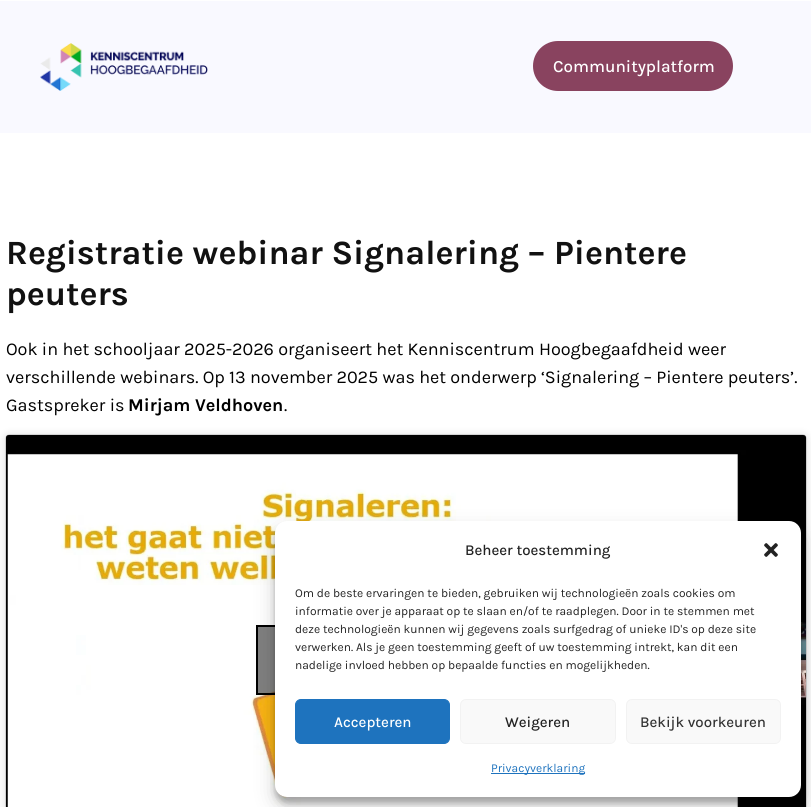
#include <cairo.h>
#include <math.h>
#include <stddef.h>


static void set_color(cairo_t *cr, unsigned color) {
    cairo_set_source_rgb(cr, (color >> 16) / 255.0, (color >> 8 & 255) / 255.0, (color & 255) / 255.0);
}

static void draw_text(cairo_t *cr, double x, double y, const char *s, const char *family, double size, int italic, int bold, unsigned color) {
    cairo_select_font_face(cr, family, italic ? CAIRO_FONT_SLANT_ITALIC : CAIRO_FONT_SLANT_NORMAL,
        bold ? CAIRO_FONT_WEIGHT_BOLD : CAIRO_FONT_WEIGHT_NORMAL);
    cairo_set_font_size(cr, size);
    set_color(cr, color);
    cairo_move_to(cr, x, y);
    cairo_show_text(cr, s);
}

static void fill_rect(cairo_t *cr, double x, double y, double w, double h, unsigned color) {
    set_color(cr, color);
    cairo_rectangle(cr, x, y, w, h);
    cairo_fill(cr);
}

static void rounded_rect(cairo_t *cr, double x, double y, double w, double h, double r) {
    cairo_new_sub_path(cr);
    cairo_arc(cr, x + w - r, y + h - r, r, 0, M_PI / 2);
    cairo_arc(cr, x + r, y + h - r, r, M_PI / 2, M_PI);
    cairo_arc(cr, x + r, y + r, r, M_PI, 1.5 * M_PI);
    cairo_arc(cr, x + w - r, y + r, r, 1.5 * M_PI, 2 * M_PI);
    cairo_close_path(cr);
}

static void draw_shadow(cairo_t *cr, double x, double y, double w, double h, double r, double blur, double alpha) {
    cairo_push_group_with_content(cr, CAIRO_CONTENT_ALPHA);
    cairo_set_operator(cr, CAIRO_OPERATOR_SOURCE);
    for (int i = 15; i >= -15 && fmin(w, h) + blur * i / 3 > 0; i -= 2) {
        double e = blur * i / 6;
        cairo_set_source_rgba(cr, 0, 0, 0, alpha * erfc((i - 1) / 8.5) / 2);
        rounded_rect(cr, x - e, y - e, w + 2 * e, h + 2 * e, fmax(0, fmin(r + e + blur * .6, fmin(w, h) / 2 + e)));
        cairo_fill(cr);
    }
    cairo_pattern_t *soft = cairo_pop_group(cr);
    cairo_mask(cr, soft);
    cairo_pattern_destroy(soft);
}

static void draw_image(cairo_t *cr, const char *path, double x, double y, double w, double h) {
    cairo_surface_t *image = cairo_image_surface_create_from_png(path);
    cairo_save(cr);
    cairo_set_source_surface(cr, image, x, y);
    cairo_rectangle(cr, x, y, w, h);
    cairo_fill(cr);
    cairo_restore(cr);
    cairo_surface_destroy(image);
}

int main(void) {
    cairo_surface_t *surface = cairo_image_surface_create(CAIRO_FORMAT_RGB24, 811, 807);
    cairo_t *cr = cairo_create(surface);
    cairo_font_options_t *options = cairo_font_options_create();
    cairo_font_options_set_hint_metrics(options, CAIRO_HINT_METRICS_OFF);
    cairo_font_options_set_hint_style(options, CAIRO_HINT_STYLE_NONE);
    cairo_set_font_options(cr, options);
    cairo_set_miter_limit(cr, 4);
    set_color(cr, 0xFFFFFF);
    cairo_paint(cr);
    fill_rect(cr, 0, 1, 811, 132, 0xF9F9FF);
    draw_image(cr, "assets/img1.png", 40, 43, 168, 48);
    set_color(cr, 0x89435F);
    rounded_rect(cr, 533, 41, 200, 50, 25);
    cairo_fill(cr);
    draw_text(cr, 553, 72, "Communityplatform", "Karla Medium", 17, 0, 0, 0xFFFFFF);
    draw_text(cr, 6, 264, "Registratie webinar Signalering – Pientere", "Karla", 34, 0, 1, 0x111111);
    draw_text(cr, 6, 305, "peuters", "Karla", 34, 0, 1, 0x111111);
    draw_text(cr, 6, 355, "Ook in het schooljaar 2025-2026 organiseert het Kenniscentrum Hoogbegaafdheid weer", "Karla", 18, 0, 0, 0x000000);
    draw_text(cr, 6, 383, "verschillende webinars. Op 13 november 2025 was het onderwerp ‘Signalering – Pientere peuters’.", "Karla", 18, 0, 0, 0x000000);
    draw_text(cr, 6, 411, "Gastspreker is", "Karla", 18, 0, 0, 0x000000);
    draw_text(cr, 128, 411, "Mirjam Veldhoven", "Karla", 18, 0, 1, 0x000000);
    draw_text(cr, 284, 411, ".", "Karla", 18, 0, 0, 0x000000);
    set_color(cr, 0x000000);
    draw_shadow(cr, 6, 436, 800, 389, 3, 5, 0.15);
    draw_shadow(cr, 6, 435, 800, 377, 3, 0.5, 0.5);
    draw_image(cr, "assets/img2.png", 6, 435, 800, 372);
    cairo_set_source_rgba(cr, 0, 0, 0, 0.5);
    cairo_rectangle(cr, 258, 627, 17, 66);
    cairo_fill(cr);
    cairo_rectangle(cr, 257, 626, 298, 68);
    set_color(cr, 0x000000);
    cairo_stroke(cr);
    set_color(cr, 0x000000);
    draw_shadow(cr, 275, 527, 526, 276, 12, 3, 0.23);
    draw_shadow(cr, 275, 531, 526, 276, 12, 10, 0.19);
    set_color(cr, 0xFFFFFF);
    rounded_rect(cr, 275, 521, 526, 276, 12);
    cairo_fill(cr);
    draw_text(cr, 465, 555, "Beheer toestemming", "Karla Medium", 15, 0, 0, 0x222222);
    draw_image(cr, "assets/img3.png", 764, 543, 14, 14);
    draw_text(cr, 295, 597, "Om de beste ervaringen te bieden, gebruiken wij technologieën zoals cookies om", "Karla", 12, 0, 0, 0x222222);
    draw_text(cr, 295, 615, "informatie over je apparaat op te slaan en/of te raadplegen. Door in te stemmen met", "Karla", 12, 0, 0, 0x222222);
    draw_text(cr, 295, 633, "deze technologieën kunnen wij gegevens zoals surfgedrag of unieke ID's op deze site", "Karla", 12, 0, 0, 0x222222);
    draw_text(cr, 295, 651, "verwerken. Als je geen toestemming geeft of uw toestemming intrekt, kan dit een", "Karla", 12, 0, 0, 0x222222);
    draw_text(cr, 295, 669, "nadelige invloed hebben op bepaalde functies en mogelijkheden.", "Karla", 12, 0, 0, 0x222222);
    set_color(cr, 0x1E73BE);
    rounded_rect(cr, 295.5, 699.5, 154, 44, 5.5);
    cairo_fill_preserve(cr);
    cairo_set_line_width(cr, 1);
    cairo_stroke(cr);
    draw_text(cr, 334, 727, "Accepteren", "Karla Medium", 15, 0, 0, 0xFFFFFF);
    set_color(cr, 0xF9F9F9);
    rounded_rect(cr, 460.5, 699.5, 155, 44, 5.5);
    cairo_fill_preserve(cr);
    set_color(cr, 0xF2F2F2);
    cairo_stroke(cr);
    draw_text(cr, 505, 727, "Weigeren", "Karla Medium", 15, 0, 0, 0x222222);
    set_color(cr, 0xF9F9F9);
    rounded_rect(cr, 626.5, 699.5, 154, 44, 5.5);
    cairo_fill_preserve(cr);
    set_color(cr, 0xF2F2F2);
    cairo_stroke(cr);
    draw_text(cr, 640, 727, "Bekijk voorkeuren", "Karla Medium", 15, 0, 0, 0x333333);
    fill_rect(cr, 491, 773, 94, 1, 0x1E73BE);
    draw_text(cr, 491, 772, "Privacyverklaring", "Karla", 12, 0, 0, 0x1E73BE);
    cairo_surface_write_to_png(surface, "output.png");
    cairo_font_options_destroy(options);
    cairo_destroy(cr);
    cairo_surface_destroy(surface);
    return 0;
}
